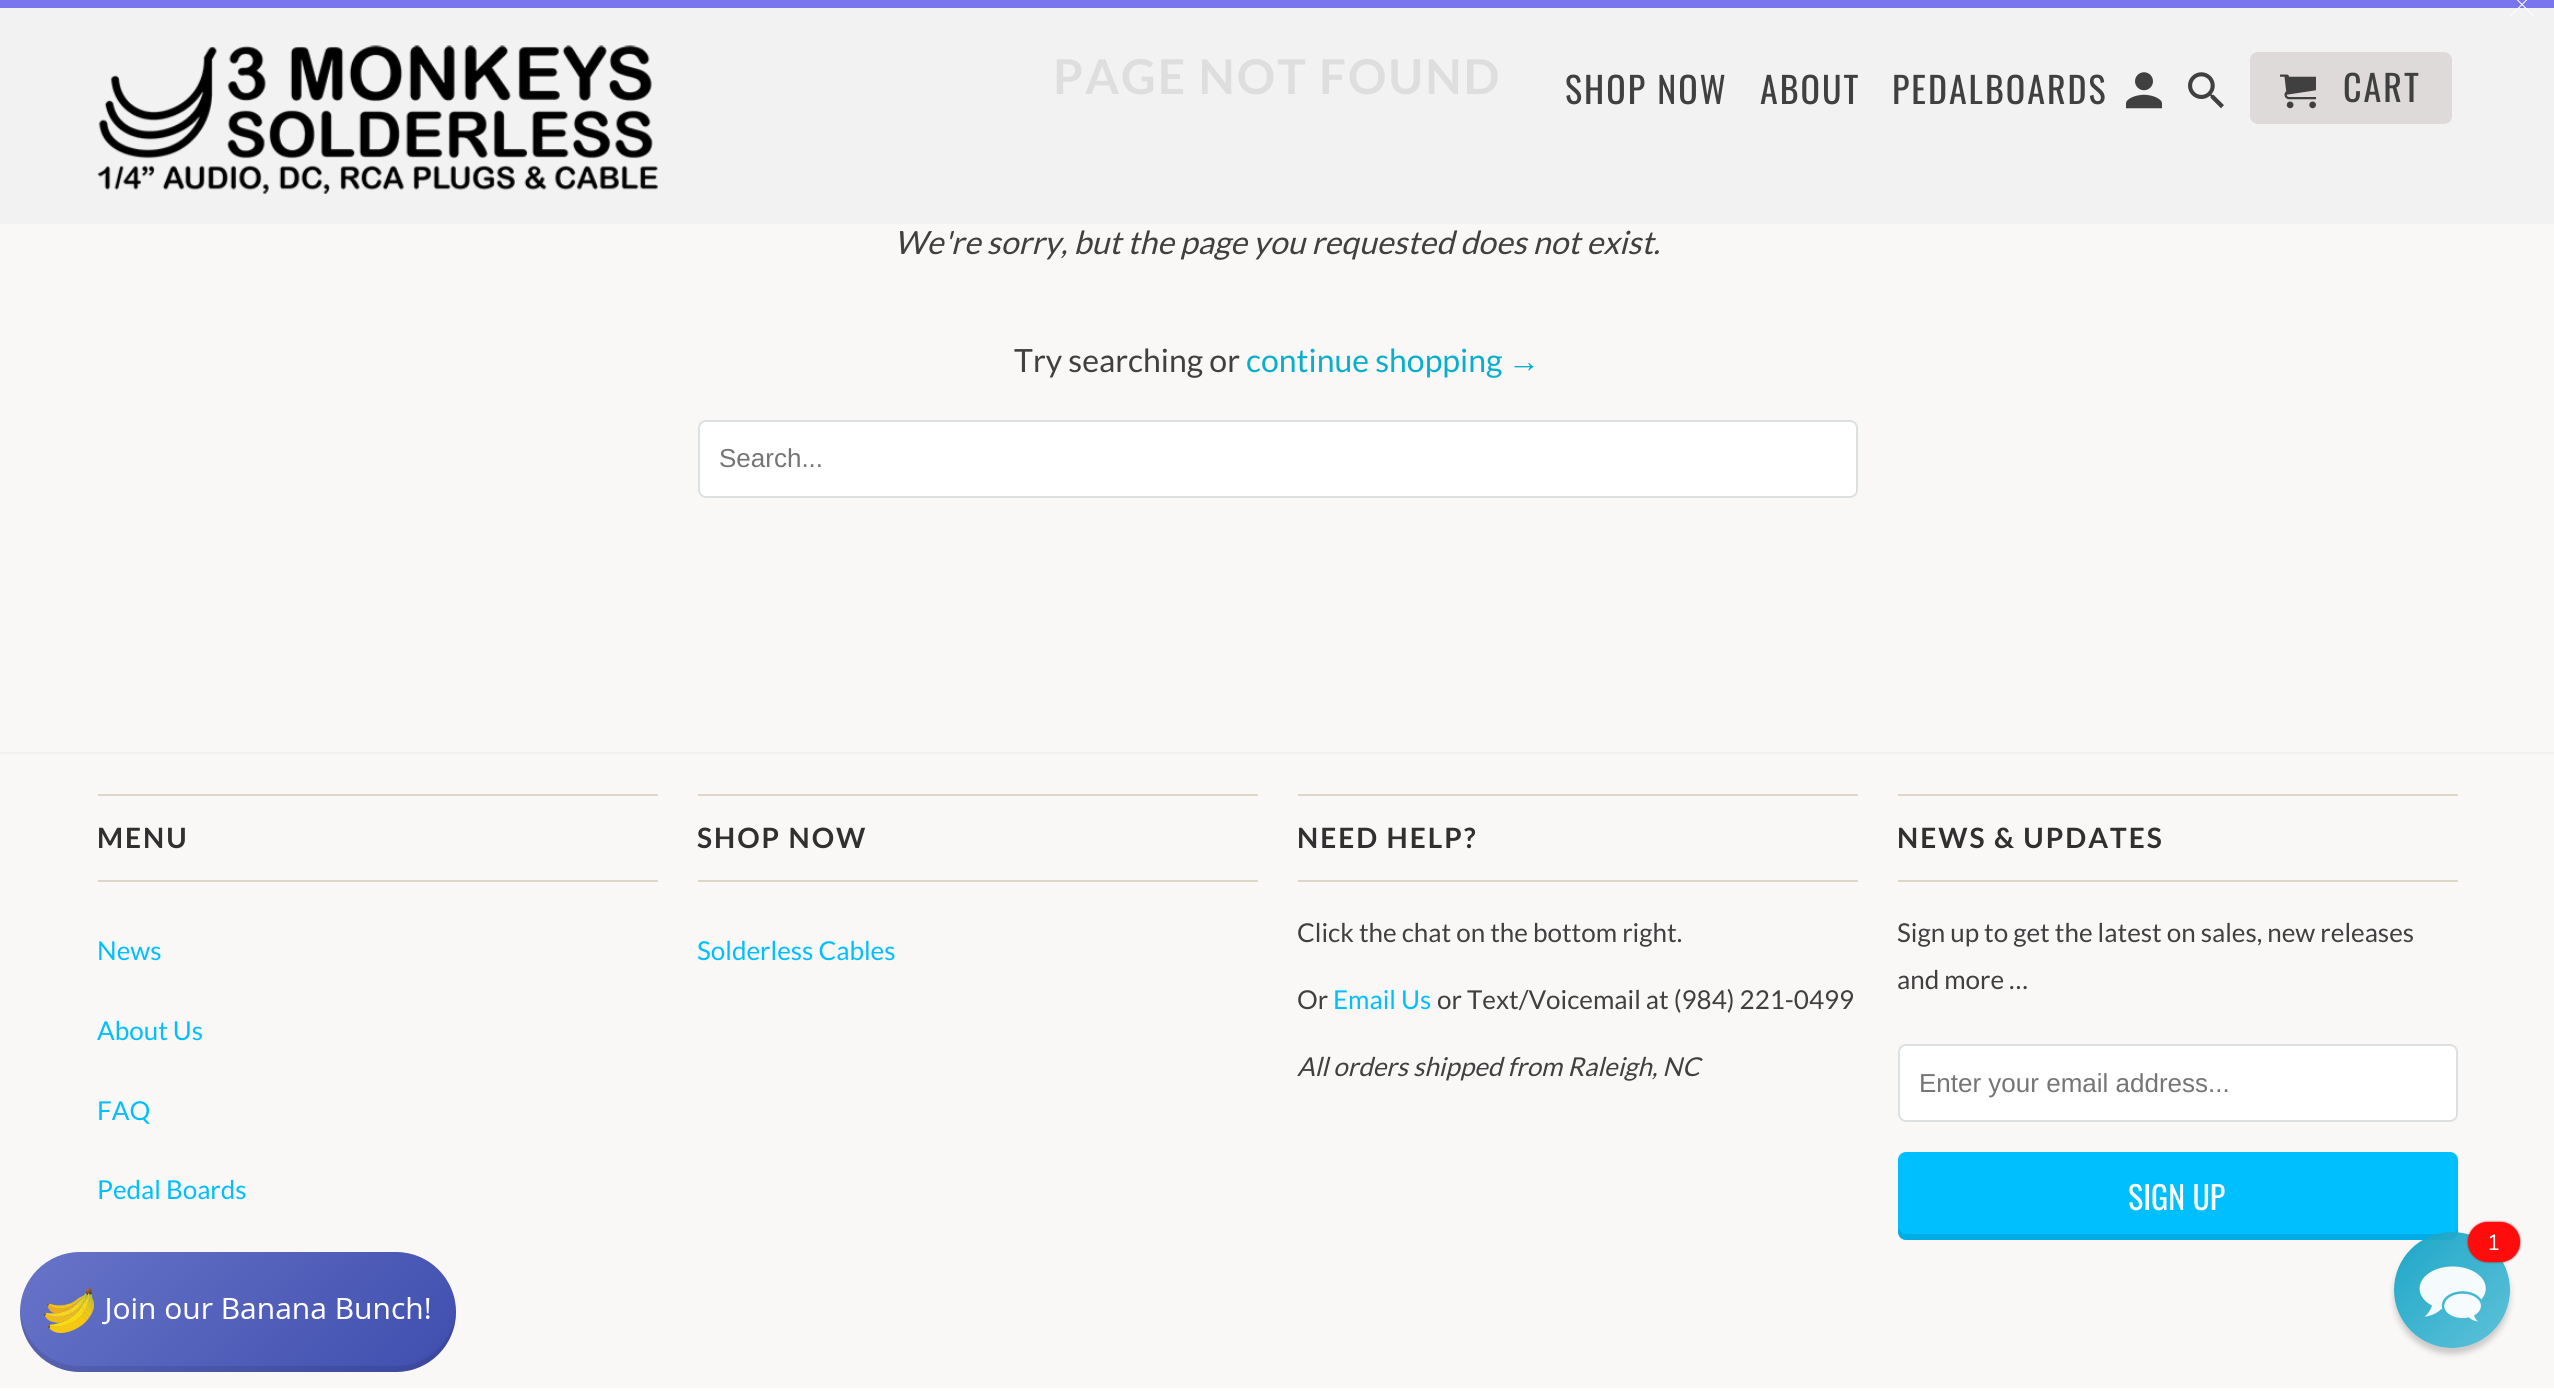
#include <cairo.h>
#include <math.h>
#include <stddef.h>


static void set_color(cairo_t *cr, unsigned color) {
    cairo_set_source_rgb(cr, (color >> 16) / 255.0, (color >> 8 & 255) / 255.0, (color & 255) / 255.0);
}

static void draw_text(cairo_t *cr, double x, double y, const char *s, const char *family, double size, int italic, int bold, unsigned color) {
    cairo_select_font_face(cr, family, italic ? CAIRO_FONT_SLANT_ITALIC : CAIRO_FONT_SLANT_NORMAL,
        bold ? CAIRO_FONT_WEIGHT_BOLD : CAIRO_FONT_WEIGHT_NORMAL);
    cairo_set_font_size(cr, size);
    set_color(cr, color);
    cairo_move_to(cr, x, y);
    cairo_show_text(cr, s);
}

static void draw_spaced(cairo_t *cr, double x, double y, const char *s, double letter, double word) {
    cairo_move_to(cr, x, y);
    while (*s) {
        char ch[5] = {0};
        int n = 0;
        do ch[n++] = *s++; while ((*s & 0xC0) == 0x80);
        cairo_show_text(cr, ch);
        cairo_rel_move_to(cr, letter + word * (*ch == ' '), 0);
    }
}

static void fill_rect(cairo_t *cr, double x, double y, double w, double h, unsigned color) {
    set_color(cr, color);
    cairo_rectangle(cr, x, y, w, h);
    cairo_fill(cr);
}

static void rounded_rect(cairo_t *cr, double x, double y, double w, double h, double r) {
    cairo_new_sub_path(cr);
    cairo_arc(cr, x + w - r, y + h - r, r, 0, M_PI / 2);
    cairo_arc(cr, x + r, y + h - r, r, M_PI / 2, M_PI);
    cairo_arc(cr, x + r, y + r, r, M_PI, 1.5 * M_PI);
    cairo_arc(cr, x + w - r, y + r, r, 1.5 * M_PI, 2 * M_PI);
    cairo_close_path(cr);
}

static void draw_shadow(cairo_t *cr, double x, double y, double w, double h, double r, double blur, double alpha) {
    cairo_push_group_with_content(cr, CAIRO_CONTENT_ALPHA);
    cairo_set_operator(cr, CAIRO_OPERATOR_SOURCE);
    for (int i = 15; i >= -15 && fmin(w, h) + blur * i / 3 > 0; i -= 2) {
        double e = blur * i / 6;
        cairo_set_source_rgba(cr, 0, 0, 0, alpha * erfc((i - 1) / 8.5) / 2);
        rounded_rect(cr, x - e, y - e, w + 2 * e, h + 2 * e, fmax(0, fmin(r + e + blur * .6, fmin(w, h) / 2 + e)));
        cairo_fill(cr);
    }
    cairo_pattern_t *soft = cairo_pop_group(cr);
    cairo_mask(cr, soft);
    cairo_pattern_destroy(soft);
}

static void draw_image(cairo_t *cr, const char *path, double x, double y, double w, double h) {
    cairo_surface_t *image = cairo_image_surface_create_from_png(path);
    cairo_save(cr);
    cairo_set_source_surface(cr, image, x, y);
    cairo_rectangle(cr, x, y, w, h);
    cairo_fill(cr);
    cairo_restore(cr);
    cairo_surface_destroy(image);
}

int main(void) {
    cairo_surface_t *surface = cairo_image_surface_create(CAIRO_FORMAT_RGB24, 2554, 1391);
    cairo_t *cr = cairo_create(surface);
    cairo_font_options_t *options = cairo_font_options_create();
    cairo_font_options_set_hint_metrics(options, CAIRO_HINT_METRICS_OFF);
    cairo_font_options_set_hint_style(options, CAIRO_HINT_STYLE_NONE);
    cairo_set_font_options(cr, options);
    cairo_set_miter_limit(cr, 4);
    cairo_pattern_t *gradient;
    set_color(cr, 0xFAF7F7);
    cairo_paint(cr);
    fill_rect(cr, 0, 8, 2554, 216, 0xF2F2F2);
    cairo_select_font_face(cr, "Lato", CAIRO_FONT_SLANT_NORMAL, CAIRO_FONT_WEIGHT_BOLD);
    cairo_set_font_size(cr, 48);
    set_color(cr, 0xDEDEDE);
    draw_spaced(cr, 1053, 94, "PAGE NOT FOUND", 2, 0);
    draw_text(cr, 894, 254, "We're sorry, but the page you requested does not exist.", "Lato", 32, 1, 0, 0x404040);
    draw_text(cr, 1014, 372, "Try searching or", "Lato", 32, 0, 0, 0x404040);
    draw_text(cr, 1246, 372, "continue shopping", "Lato", 32, 0, 0, 0x08AFCC);
    draw_text(cr, 1508, 372, "→", "Liberation Serif", 32, 0, 0, 0x08AFCC);
    set_color(cr, 0xFFFFFF);
    rounded_rect(cr, 699, 421, 1158, 76, 7);
    cairo_fill_preserve(cr);
    set_color(cr, 0xDCE0E0);
    cairo_stroke(cr);
    draw_text(cr, 719, 467, "Search...", "Liberation Sans", 26, 0, 0, 0x757575);
    fill_rect(cr, 0, 752, 2554, 2, 0xF1F1F1);
    fill_rect(cr, 98, 794, 560, 2, 0xDED6C7);
    fill_rect(cr, 98, 880, 560, 2, 0xDED6C7);
    cairo_select_font_face(cr, "Lato", CAIRO_FONT_SLANT_NORMAL, CAIRO_FONT_WEIGHT_BOLD);
    cairo_set_font_size(cr, 28);
    set_color(cr, 0x303030);
    draw_spaced(cr, 97, 848, "MENU", 2, 0);
    draw_text(cr, 97, 960, "News", "Lato", 26, 0, 0, 0x00BFFF);
    draw_text(cr, 97, 1040, "About Us", "Lato", 26, 0, 0, 0x00BFFF);
    draw_text(cr, 97, 1120, "FAQ", "Lato", 26, 0, 0, 0x00BFFF);
    draw_text(cr, 97, 1199, "Pedal Boards", "Lato", 26, 0, 0, 0x00BFFF);
    fill_rect(cr, 698, 794, 560, 2, 0xDED6C7);
    fill_rect(cr, 698, 880, 560, 2, 0xDED6C7);
    cairo_select_font_face(cr, "Lato", CAIRO_FONT_SLANT_NORMAL, CAIRO_FONT_WEIGHT_BOLD);
    cairo_set_font_size(cr, 28);
    set_color(cr, 0x303030);
    draw_spaced(cr, 697, 848, "SHOP NOW", 2, 0);
    draw_text(cr, 697, 960, "Solderless Cables", "Lato", 26, 0, 0, 0x00BFFF);
    fill_rect(cr, 1298, 794, 560, 2, 0xDED6C7);
    fill_rect(cr, 1298, 880, 560, 2, 0xDED6C7);
    cairo_select_font_face(cr, "Lato", CAIRO_FONT_SLANT_NORMAL, CAIRO_FONT_WEIGHT_BOLD);
    cairo_set_font_size(cr, 28);
    set_color(cr, 0x303030);
    draw_spaced(cr, 1297, 848, "NEED HELP?", 2, 0);
    draw_text(cr, 1297, 942, "Click the chat on the bottom right.", "Lato", 26, 0, 0, 0x404040);
    draw_text(cr, 1297, 1009, "Or", "Lato", 26, 0, 0, 0x404040);
    draw_text(cr, 1333, 1009, "Email Us", "Lato", 26, 0, 0, 0x00BFFF);
    draw_text(cr, 1437, 1009, "or Text/Voicemail at (984) 221-0499", "Lato", 26, 0, 0, 0x404040);
    draw_text(cr, 1297, 1076, "All orders shipped from Raleigh, NC", "Lato", 26, 1, 0, 0x404040);
    fill_rect(cr, 1898, 794, 560, 2, 0xDED6C7);
    fill_rect(cr, 1898, 880, 560, 2, 0xDED6C7);
    cairo_select_font_face(cr, "Lato", CAIRO_FONT_SLANT_NORMAL, CAIRO_FONT_WEIGHT_BOLD);
    cairo_set_font_size(cr, 28);
    set_color(cr, 0x303030);
    draw_spaced(cr, 1897, 848, "NEWS & UPDATES", 2, 0);
    draw_text(cr, 1897, 942, "Sign up to get the latest on sales, new releases", "Lato", 26, 0, 0, 0x404040);
    draw_text(cr, 1897, 989, "and more …", "Lato", 26, 0, 0, 0x404040);
    set_color(cr, 0xFFFFFF);
    rounded_rect(cr, 1899, 1045, 558, 76, 7);
    cairo_fill_preserve(cr);
    set_color(cr, 0xDCE0E0);
    cairo_stroke(cr);
    draw_text(cr, 1919, 1092, "Enter your email address...", "Liberation Sans", 26, 0, 0, 0x757575);
    set_color(cr, 0x00BFFF);
    rounded_rect(cr, 1898, 1152, 560, 88, 8);
    cairo_fill(cr);
    cairo_set_source_rgba(cr, 0, 0, 0, 0.1);
    cairo_new_path(cr);
    cairo_move_to(cr, 1898, 1226);
    cairo_curve_to(cr, 1898, 1231, 1897, 1238, 1904, 1240);
    cairo_line_to(cr, 2452, 1240);
    cairo_curve_to(cr, 2459, 1238, 2458, 1231, 2458, 1226);
    cairo_curve_to(cr, 2458, 1230, 2454, 1234, 2450, 1234);
    cairo_line_to(cr, 1906, 1234);
    cairo_curve_to(cr, 1902, 1234, 1898, 1230, 1898, 1226);
    cairo_close_path(cr);
    cairo_fill(cr);
    draw_text(cr, 2128, 1210, "SIGN UP", "Oswald", 32, 0, 0, 0xFFFFFF);
    fill_rect(cr, 0, 1388, 2554, 3, 0xFFFFFF);
    gradient = cairo_pattern_create_linear(99, 1173, 377, 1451);
    cairo_pattern_add_color_stop_rgba(gradient, 0, 0.404, 0.455, 0.784, 1);
    cairo_pattern_add_color_stop_rgba(gradient, 1, 0.247, 0.306, 0.682, 1);
    cairo_set_source(cr, gradient);
    cairo_pattern_destroy(gradient);
    rounded_rect(cr, 20, 1252, 436, 120, 60);
    cairo_fill(cr);
    cairo_set_source_rgba(cr, 0, 0, 0, 0.1);
    cairo_new_path(cr);
    cairo_move_to(cr, 20, 1309);
    cairo_line_to(cr, 20, 1312);
    cairo_curve_to(cr, 20, 1345, 47, 1372, 80, 1372);
    cairo_line_to(cr, 396, 1372);
    cairo_curve_to(cr, 429, 1372, 456, 1345, 456, 1312);
    cairo_line_to(cr, 456, 1309);
    cairo_curve_to(cr, 454, 1341, 428, 1366, 396, 1366);
    cairo_line_to(cr, 80, 1366);
    cairo_curve_to(cr, 48, 1366, 22, 1341, 20, 1309);
    cairo_close_path(cr);
    cairo_fill(cr);
    draw_image(cr, "assets/img1.png", 44, 1288, 386, 45);
    fill_rect(cr, 0, 0, 2554, 8, 0x7875EF);
    draw_image(cr, "assets/img2.png", 2510, 0, 24, 16);
    draw_image(cr, "assets/img3.png", 97, 45, 561, 149);
    cairo_set_font_size(cr, 36);
    set_color(cr, 0x404040);
    draw_spaced(cr, 1565, 104, "SHOP NOW", 2, 0);
    draw_spaced(cr, 1760, 104, "ABOUT", 2, 0);
    draw_spaced(cr, 1892, 104, "PEDALBOARDS", 2, 0);
    draw_image(cr, "assets/img4.png", 2126, 72, 36, 37);
    draw_image(cr, "assets/img5.png", 2188, 72, 36, 37);
    set_color(cr, 0xDEDADA);
    rounded_rect(cr, 2250, 52, 202, 72, 8);
    cairo_fill(cr);
    draw_image(cr, "assets/img6.png", 2280, 74, 36, 35);
    set_color(cr, 0x404040);
    draw_spaced(cr, 2343, 102, "CART", 2, 0);
    cairo_save(cr);
    cairo_set_fill_rule(cr, CAIRO_FILL_RULE_EVEN_ODD);
    cairo_new_path(cr);
    cairo_move_to(cr, 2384, 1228);
    cairo_line_to(cr, 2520, 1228);
    cairo_line_to(cr, 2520, 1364);
    cairo_line_to(cr, 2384, 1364);
    cairo_close_path(cr);
    cairo_move_to(cr, 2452, 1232);
    cairo_curve_to(cr, 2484, 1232, 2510, 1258, 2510, 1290);
    cairo_curve_to(cr, 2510, 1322, 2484, 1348, 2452, 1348);
    cairo_curve_to(cr, 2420, 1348, 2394, 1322, 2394, 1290);
    cairo_curve_to(cr, 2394, 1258, 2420, 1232, 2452, 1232);
    cairo_close_path(cr);
    cairo_clip(cr);
    set_color(cr, 0x000000);
    draw_shadow(cr, 2394, 1238, 116, 116, 58, 3, 0.19);
    cairo_restore(cr);
    gradient = cairo_pattern_create_linear(2394, 1232, 2510, 1348);
    cairo_pattern_add_color_stop_rgba(gradient, 0, 0.063, 0.635, 0.773, 0.95);
    cairo_pattern_add_color_stop_rgba(gradient, 1, 0.345, 0.745, 0.839, 0.95);
    cairo_set_source(cr, gradient);
    cairo_pattern_destroy(gradient);
    cairo_arc(cr, 2452, 1290, 58, 0, 2 * M_PI);
    cairo_fill(cr);
    set_color(cr, 0xBE0C0C);
    draw_shadow(cr, 2468, 1222, 52, 40, 20, 1, 1);
    set_color(cr, 0xFF0C0C);
    rounded_rect(cr, 2468, 1222, 52, 40, 20);
    cairo_fill(cr);
    draw_text(cr, 2487, 1250, "1", "Nunito", 22, 0, 0, 0xFFFFFF);
    draw_image(cr, "assets/img7.png", 2419, 1266, 67, 56);
    cairo_surface_write_to_png(surface, "output.png");
    cairo_font_options_destroy(options);
    cairo_destroy(cr);
    cairo_surface_destroy(surface);
    return 0;
}
